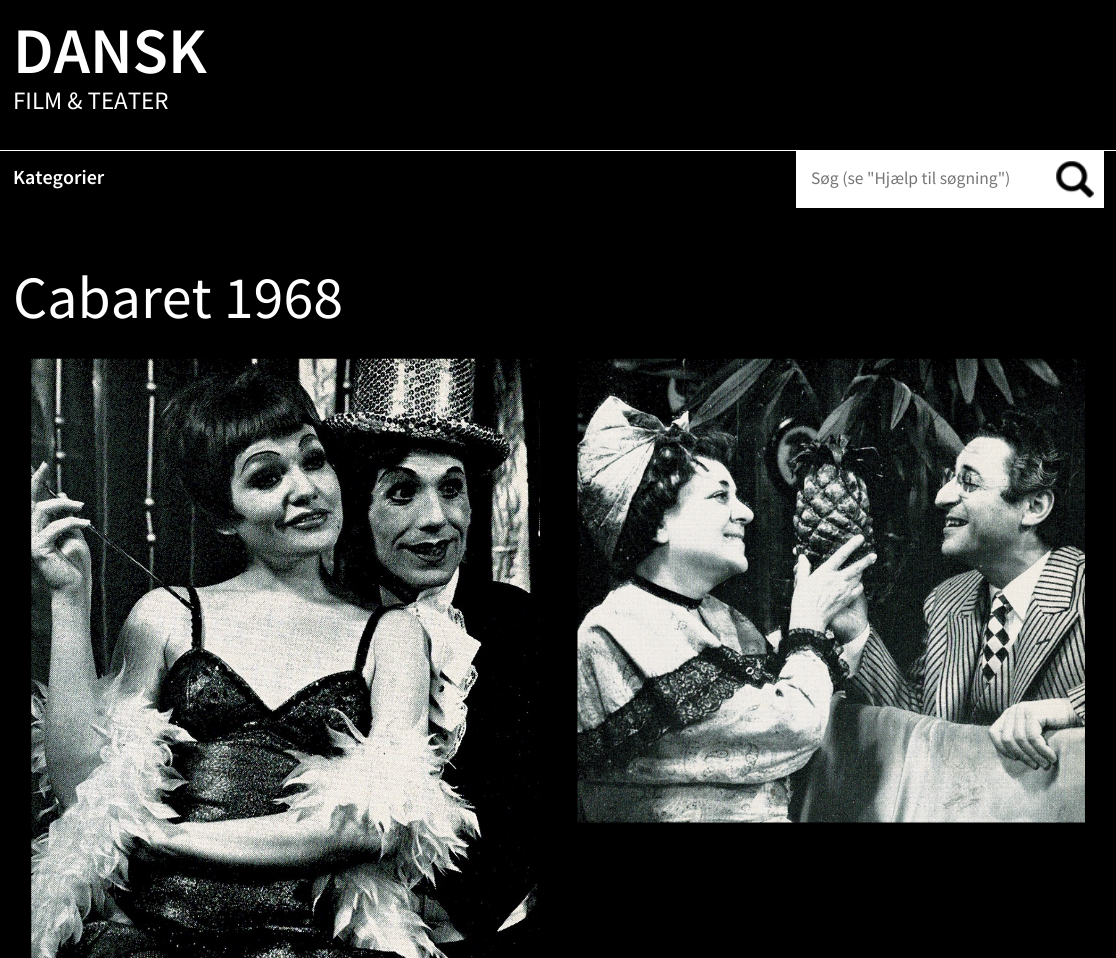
#include <cairo.h>
#include <math.h>
#include <stddef.h>


static void set_color(cairo_t *cr, unsigned color) {
    cairo_set_source_rgb(cr, (color >> 16) / 255.0, (color >> 8 & 255) / 255.0, (color & 255) / 255.0);
}

static void draw_text(cairo_t *cr, double x, double y, const char *s, const char *family, double size, int italic, int bold, unsigned color) {
    cairo_select_font_face(cr, family, italic ? CAIRO_FONT_SLANT_ITALIC : CAIRO_FONT_SLANT_NORMAL,
        bold ? CAIRO_FONT_WEIGHT_BOLD : CAIRO_FONT_WEIGHT_NORMAL);
    cairo_set_font_size(cr, size);
    set_color(cr, color);
    cairo_move_to(cr, x, y);
    cairo_show_text(cr, s);
}

static void fill_rect(cairo_t *cr, double x, double y, double w, double h, unsigned color) {
    set_color(cr, color);
    cairo_rectangle(cr, x, y, w, h);
    cairo_fill(cr);
}

static void draw_image(cairo_t *cr, const char *path, double x, double y, double w, double h) {
    cairo_surface_t *image = cairo_image_surface_create_from_png(path);
    cairo_save(cr);
    cairo_set_source_surface(cr, image, x, y);
    cairo_rectangle(cr, x, y, w, h);
    cairo_fill(cr);
    cairo_restore(cr);
    cairo_surface_destroy(image);
}

int main(void) {
    cairo_surface_t *surface = cairo_image_surface_create(CAIRO_FORMAT_RGB24, 1116, 958);
    cairo_t *cr = cairo_create(surface);
    cairo_font_options_t *options = cairo_font_options_create();
    cairo_font_options_set_hint_metrics(options, CAIRO_HINT_METRICS_OFF);
    cairo_font_options_set_hint_style(options, CAIRO_HINT_STYLE_NONE);
    cairo_set_font_options(cr, options);
    cairo_set_miter_limit(cr, 4);
    set_color(cr, 0x000000);
    cairo_paint(cr);
    fill_rect(cr, 0, 150, 1116, 1, 0xFFFFFF);
    draw_text(cr, 13, 73, "DANSK", "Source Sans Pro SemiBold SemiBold", 65, 0, 0, 0xFFFFFF);
    draw_text(cr, 13, 109, "FILM & TEATER", "Source Sans Pro", 25, 0, 0, 0xFFFFFF);
    draw_text(cr, 13, 184, "Kategorier", "Source Sans Pro SemiBold SemiBold", 20, 0, 0, 0xFFFFFF);
    fill_rect(cr, 796, 151, 308, 57, 0xFFFFFF);
    draw_text(cr, 811, 184, "Søg (se \"Hjælp til søgning\")", "Source Sans Pro", 17.5, 0, 0, 0x757575);
    draw_image(cr, "assets/img1.png", 1056, 161, 38, 37);
    draw_text(cr, 13, 318, "Cabaret 1968", "Source Sans Pro", 60, 0, 0, 0xFFFFFF);
    draw_image(cr, "assets/img2.png", 31, 358, 509, 600);
    draw_image(cr, "assets/img3.png", 577, 358, 508, 465);
    cairo_surface_write_to_png(surface, "output.png");
    cairo_font_options_destroy(options);
    cairo_destroy(cr);
    cairo_surface_destroy(surface);
    return 0;
}
